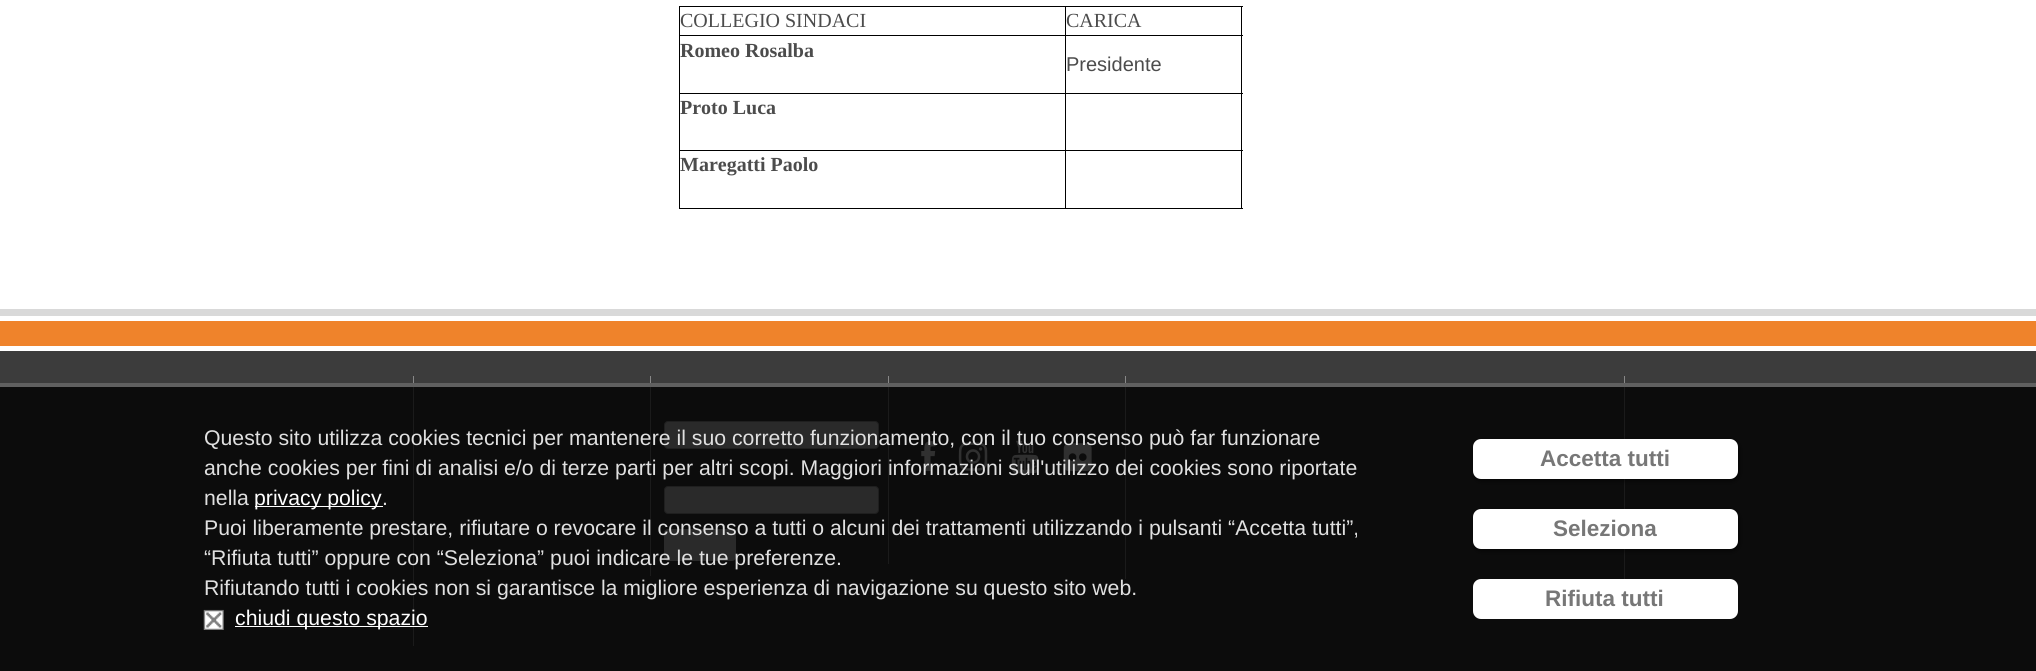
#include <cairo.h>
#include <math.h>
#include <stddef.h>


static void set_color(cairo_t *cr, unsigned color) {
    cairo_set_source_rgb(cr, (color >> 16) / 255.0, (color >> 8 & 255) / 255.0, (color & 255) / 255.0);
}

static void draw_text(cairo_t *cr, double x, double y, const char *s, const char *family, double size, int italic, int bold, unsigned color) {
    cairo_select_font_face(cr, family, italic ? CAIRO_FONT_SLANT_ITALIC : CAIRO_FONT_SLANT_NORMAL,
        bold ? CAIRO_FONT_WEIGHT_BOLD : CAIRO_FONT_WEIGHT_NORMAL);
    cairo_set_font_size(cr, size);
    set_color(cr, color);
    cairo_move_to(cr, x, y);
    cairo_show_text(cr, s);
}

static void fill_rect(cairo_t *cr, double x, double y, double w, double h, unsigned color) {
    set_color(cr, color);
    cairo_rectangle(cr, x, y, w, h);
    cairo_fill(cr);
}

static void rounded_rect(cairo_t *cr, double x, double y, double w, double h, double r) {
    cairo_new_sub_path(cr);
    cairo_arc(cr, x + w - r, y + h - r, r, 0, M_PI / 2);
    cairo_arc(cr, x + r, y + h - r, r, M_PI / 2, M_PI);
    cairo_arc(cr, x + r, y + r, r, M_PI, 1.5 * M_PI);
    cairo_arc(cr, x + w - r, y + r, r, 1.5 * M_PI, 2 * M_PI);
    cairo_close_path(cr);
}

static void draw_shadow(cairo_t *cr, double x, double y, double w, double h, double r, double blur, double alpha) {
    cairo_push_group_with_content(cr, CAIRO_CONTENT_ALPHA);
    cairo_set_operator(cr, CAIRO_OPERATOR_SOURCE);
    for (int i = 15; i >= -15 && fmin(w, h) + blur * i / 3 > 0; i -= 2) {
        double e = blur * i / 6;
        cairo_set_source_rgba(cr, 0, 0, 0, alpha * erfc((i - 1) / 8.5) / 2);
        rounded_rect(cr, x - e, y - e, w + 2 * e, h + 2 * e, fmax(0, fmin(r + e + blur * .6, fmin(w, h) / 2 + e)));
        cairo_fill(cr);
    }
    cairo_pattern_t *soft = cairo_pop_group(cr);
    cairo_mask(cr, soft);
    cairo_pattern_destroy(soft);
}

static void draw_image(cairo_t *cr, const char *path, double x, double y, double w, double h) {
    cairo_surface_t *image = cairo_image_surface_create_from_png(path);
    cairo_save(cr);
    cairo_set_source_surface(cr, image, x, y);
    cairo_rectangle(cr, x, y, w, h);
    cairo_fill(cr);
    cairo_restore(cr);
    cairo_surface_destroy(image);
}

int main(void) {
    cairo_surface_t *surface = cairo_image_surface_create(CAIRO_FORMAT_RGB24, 2036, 671);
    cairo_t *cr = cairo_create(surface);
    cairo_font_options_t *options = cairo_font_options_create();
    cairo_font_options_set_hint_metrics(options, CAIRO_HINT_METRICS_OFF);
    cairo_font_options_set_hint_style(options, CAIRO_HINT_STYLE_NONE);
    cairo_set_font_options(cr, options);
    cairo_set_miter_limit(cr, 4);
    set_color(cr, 0xFFFFFF);
    cairo_paint(cr);
    fill_rect(cr, 679, 6, 564, 1, 0x000000);
    fill_rect(cr, 1241, 35, 1, 174, 0x000000);
    fill_rect(cr, 1241, 6, 1, 30, 0x000000);
    fill_rect(cr, 679, 208, 387, 1, 0x000000);
    fill_rect(cr, 679, 150, 1, 59, 0x000000);
    fill_rect(cr, 1065, 208, 178, 1, 0x000000);
    fill_rect(cr, 1065, 150, 1, 59, 0x000000);
    fill_rect(cr, 679, 150, 564, 1, 0x000000);
    fill_rect(cr, 679, 93, 1, 58, 0x000000);
    fill_rect(cr, 1065, 93, 1, 58, 0x000000);
    fill_rect(cr, 679, 93, 564, 1, 0x000000);
    fill_rect(cr, 1065, 35, 1, 59, 0x000000);
    fill_rect(cr, 1065, 35, 178, 1, 0x000000);
    fill_rect(cr, 1065, 6, 1, 30, 0x000000);
    fill_rect(cr, 679, 35, 1, 59, 0x000000);
    fill_rect(cr, 679, 35, 387, 1, 0x000000);
    fill_rect(cr, 679, 6, 1, 30, 0x000000);
    draw_text(cr, 680, 27, "COLLEGIO SINDACI", "Liberation Serif", 20, 0, 0, 0x4C4C4C);
    draw_text(cr, 1066, 27, "CARICA", "Liberation Serif", 20, 0, 0, 0x4C4C4C);
    draw_text(cr, 680, 57, "Romeo Rosalba", "Liberation Serif", 20, 0, 1, 0x4C4C4C);
    draw_text(cr, 1066, 71, "Presidente", "Liberation Sans", 20, 0, 0, 0x4C4C4C);
    draw_text(cr, 680, 114, "Proto Luca", "Liberation Serif", 20, 0, 1, 0x4C4C4C);
    draw_text(cr, 680, 171, "Maregatti Paolo", "Liberation Serif", 20, 0, 1, 0x4C4C4C);
    fill_rect(cr, 0, 309, 2036, 7, 0xD9D9D9);
    fill_rect(cr, 0, 321, 2036, 25, 0xEF832B);
    fill_rect(cr, 0, 351, 2036, 320, 0x3C3C3C);
    fill_rect(cr, 413, 376, 1, 270, 0x888888);
    fill_rect(cr, 650, 376, 1, 200, 0x888888);
    set_color(cr, 0xD0D0D0);
    rounded_rect(cr, 664.5, 421.5, 214, 27, 3.5);
    cairo_fill_preserve(cr);
    set_color(cr, 0x999999);
    cairo_set_line_width(cr, 1);
    cairo_stroke(cr);
    set_color(cr, 0xD0D0D0);
    rounded_rect(cr, 664.5, 486.5, 214, 27, 3.5);
    cairo_fill_preserve(cr);
    set_color(cr, 0x999999);
    cairo_stroke(cr);
    set_color(cr, 0xD0D0D0);
    rounded_rect(cr, 664, 529, 72, 32, 4);
    cairo_fill(cr);
    fill_rect(cr, 888, 376, 1, 188, 0x888888);
    draw_image(cr, "assets/img1.png", 921, 441, 15, 31);
    draw_image(cr, "assets/img2.png", 958, 442, 30, 29);
    draw_image(cr, "assets/img3.png", 1011, 440, 28, 34);
    draw_image(cr, "assets/img4.png", 1063, 443, 29, 29);
    fill_rect(cr, 1624, 376, 1, 203, 0x888888);
    fill_rect(cr, 1125, 376, 1, 203, 0x888888);
    cairo_set_source_rgba(cr, 0, 0, 0, 0.8);
    cairo_rectangle(cr, 0, 387, 2036, 284);
    cairo_fill(cr);
    fill_rect(cr, 0, 383, 2036, 4, 0x606060);
    draw_text(cr, 204, 445, "Questo sito utilizza cookies tecnici per mantenere il suo corretto funzionamento, con il tuo consenso può far funzionare", "Liberation Sans", 21.25, 0, 0, 0xE0E0E0);
    draw_text(cr, 204, 475, "anche cookies per fini di analisi e/o di terze parti per altri scopi. Maggiori informazioni sull'utilizzo dei cookies sono riportate", "Liberation Sans", 21.25, 0, 0, 0xE0E0E0);
    draw_text(cr, 204, 505, "nella", "Liberation Sans", 21.25, 0, 0, 0xE0E0E0);
    fill_rect(cr, 255, 506, 128, 1, 0xFFFFFF);
    draw_text(cr, 254, 505, "privacy policy", "Liberation Sans", 21.25, 0, 0, 0xFFFFFF);
    draw_text(cr, 382, 505, ".", "Liberation Sans", 21.25, 0, 0, 0xE0E0E0);
    draw_text(cr, 204, 535, "Puoi liberamente prestare, rifiutare o revocare il consenso a tutti o alcuni dei trattamenti utilizzando i pulsanti “Accetta tutti”,", "Liberation Sans", 21.25, 0, 0, 0xE0E0E0);
    draw_text(cr, 204, 565, "“Rifiuta tutti” oppure con “Seleziona” puoi indicare le tue preferenze.", "Liberation Sans", 21.25, 0, 0, 0xE0E0E0);
    draw_text(cr, 204, 595, "Rifiutando tutti i cookies non si garantisce la migliore esperienza di navigazione su questo sito web.", "Liberation Sans", 21.25, 0, 0, 0xE0E0E0);
    draw_image(cr, "assets/img5.png", 203, 609, 21, 21);
    fill_rect(cr, 235, 626, 193, 1, 0xFFFFFF);
    draw_text(cr, 235, 625, "chiudi questo spazio", "Liberation Sans", 21.25, 0, 0, 0xFFFFFF);
    set_color(cr, 0x000000);
    draw_shadow(cr, 1474, 441, 265, 40, 8, 2.5, 0.6);
    set_color(cr, 0xFFFFFF);
    rounded_rect(cr, 1473, 439, 265, 40, 8);
    cairo_fill(cr);
    draw_text(cr, 1540, 466, "Accetta tutti", "Liberation Sans", 22.5, 0, 1, 0x777777);
    set_color(cr, 0x000000);
    draw_shadow(cr, 1474, 511, 265, 40, 8, 2.5, 0.6);
    set_color(cr, 0xFFFFFF);
    rounded_rect(cr, 1473, 509, 265, 40, 8);
    cairo_fill(cr);
    draw_text(cr, 1553, 536, "Seleziona", "Liberation Sans", 22.5, 0, 1, 0x777777);
    set_color(cr, 0xFFFFFF);
    rounded_rect(cr, 1473, 579, 265, 40, 8);
    cairo_fill(cr);
    draw_text(cr, 1545, 606, "Rifiuta tutti", "Liberation Sans", 22.5, 0, 1, 0x777777);
    cairo_surface_write_to_png(surface, "output.png");
    cairo_font_options_destroy(options);
    cairo_destroy(cr);
    cairo_surface_destroy(surface);
    return 0;
}
